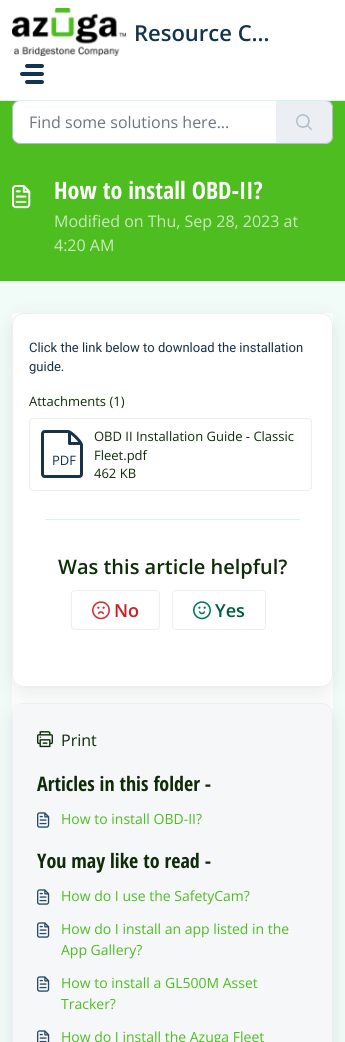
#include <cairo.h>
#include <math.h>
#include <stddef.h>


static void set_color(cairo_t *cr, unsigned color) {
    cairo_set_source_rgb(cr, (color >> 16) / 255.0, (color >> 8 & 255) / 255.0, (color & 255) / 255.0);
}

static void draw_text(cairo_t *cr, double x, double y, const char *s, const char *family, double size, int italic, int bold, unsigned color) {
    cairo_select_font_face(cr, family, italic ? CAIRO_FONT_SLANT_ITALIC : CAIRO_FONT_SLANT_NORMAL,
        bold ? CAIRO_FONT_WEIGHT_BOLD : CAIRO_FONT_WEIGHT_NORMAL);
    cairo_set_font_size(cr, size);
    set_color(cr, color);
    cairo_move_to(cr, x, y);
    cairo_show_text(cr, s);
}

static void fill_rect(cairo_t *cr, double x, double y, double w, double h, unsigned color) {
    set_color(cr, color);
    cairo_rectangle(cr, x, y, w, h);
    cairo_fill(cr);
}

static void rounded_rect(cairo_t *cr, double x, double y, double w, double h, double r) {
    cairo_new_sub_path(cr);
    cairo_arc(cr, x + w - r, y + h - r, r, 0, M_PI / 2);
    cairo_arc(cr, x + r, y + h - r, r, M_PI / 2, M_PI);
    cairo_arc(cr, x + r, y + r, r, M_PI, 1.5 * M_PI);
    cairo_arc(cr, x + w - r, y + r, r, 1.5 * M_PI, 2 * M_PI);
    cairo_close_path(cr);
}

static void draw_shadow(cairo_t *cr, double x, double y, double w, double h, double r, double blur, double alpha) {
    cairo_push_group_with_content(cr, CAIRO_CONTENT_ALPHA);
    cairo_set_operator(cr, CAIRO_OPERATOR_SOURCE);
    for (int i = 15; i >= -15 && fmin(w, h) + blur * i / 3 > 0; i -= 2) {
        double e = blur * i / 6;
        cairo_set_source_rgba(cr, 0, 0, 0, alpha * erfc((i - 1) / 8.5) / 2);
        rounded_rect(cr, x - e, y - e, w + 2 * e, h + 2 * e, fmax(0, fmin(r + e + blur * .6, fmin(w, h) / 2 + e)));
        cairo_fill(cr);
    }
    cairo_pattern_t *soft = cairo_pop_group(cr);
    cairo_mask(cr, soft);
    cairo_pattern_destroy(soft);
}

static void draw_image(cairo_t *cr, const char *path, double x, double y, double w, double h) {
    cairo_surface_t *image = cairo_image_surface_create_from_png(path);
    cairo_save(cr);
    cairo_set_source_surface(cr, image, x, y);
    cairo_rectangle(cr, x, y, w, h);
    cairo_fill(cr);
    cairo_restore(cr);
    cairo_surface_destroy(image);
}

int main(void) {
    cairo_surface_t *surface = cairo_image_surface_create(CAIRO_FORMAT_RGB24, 345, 1042);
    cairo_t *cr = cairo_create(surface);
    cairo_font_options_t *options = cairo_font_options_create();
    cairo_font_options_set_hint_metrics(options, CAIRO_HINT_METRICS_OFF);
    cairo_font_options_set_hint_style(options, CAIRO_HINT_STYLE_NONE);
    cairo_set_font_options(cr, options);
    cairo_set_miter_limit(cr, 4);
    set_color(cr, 0xF1FBF7);
    cairo_paint(cr);
    fill_rect(cr, 0, 0, 345, 100, 0xFFFFFF);
    fill_rect(cr, 0, 101, 345, 180, 0x4EBD20);
    set_color(cr, 0xFFFFFF);
    cairo_new_path(cr);
    cairo_move_to(cr, 20, 100.5);
    cairo_line_to(cr, 276.5, 100.5);
    cairo_line_to(cr, 276.5, 143.5);
    cairo_line_to(cr, 20, 143.5);
    cairo_curve_to(cr, 16, 143.5, 12.5, 140, 12.5, 136);
    cairo_line_to(cr, 12.5, 108);
    cairo_curve_to(cr, 12.5, 104, 16, 100.5, 20, 100.5);
    cairo_close_path(cr);
    cairo_fill_preserve(cr);
    set_color(cr, 0xB1BDC8);
    cairo_set_line_width(cr, 1);
    cairo_stroke(cr);
    set_color(cr, 0xEBEFF3);
    cairo_new_path(cr);
    cairo_move_to(cr, 276, 100);
    cairo_line_to(cr, 325, 100);
    cairo_curve_to(cr, 329.5, 100, 333, 103.5, 333, 108);
    cairo_line_to(cr, 333, 136);
    cairo_curve_to(cr, 333, 140.5, 329.5, 144, 325, 144);
    cairo_line_to(cr, 276, 144);
    cairo_close_path(cr);
    cairo_fill(cr);
    set_color(cr, 0xB1BDC8);
    cairo_set_fill_rule(cr, CAIRO_FILL_RULE_EVEN_ODD);
    cairo_new_path(cr);
    cairo_move_to(cr, 276, 100);
    cairo_line_to(cr, 325, 100);
    cairo_curve_to(cr, 329, 100, 333, 104, 333, 108);
    cairo_line_to(cr, 333, 136);
    cairo_curve_to(cr, 333, 140, 329, 144, 325, 144);
    cairo_line_to(cr, 276, 144);
    cairo_close_path(cr);
    cairo_move_to(cr, 276, 101);
    cairo_line_to(cr, 325, 101);
    cairo_curve_to(cr, 329, 101, 332, 104, 332, 108);
    cairo_line_to(cr, 332, 136);
    cairo_curve_to(cr, 332, 140, 329, 143, 325, 143);
    cairo_line_to(cr, 276, 143);
    cairo_close_path(cr);
    cairo_fill(cr);
    fill_rect(cr, 0, 100, 345, 1, 0xD6F5E7);
    draw_image(cr, "assets/img1.png", 12, 8, 114, 48);
    draw_text(cr, 134, 41, "Resource C…", "Open Sans SemiBold", 22, 0, 0, 0x12344D);
    rounded_rect(cr, 25, 64, 19, 4, 2);
    cairo_fill(cr);
    rounded_rect(cr, 20, 72, 24, 4, 2);
    cairo_fill(cr);
    rounded_rect(cr, 25, 80, 19, 4, 2);
    cairo_fill(cr);
    draw_text(cr, 29, 128, "Find some solutions here...", "Open Sans", 16, 0, 0, 0x6C757D);
    draw_image(cr, "assets/img2.png", 296, 114, 16, 17);
    draw_image(cr, "assets/img3.png", 12, 185, 19, 24);
    draw_text(cr, 54, 199, "How to install OBD-II?", "Open Sans Condensed", 24, 0, 1, 0xFFFFFF);
    draw_text(cr, 54, 227, "Modified on Thu, Sep 28, 2023 at", "Open Sans", 16, 0, 0, 0xCAEBBC);
    draw_text(cr, 54, 251, "4:20 AM", "Open Sans", 16, 0, 0, 0xCAEBBC);
    fill_rect(cr, 12, 313, 321, 403, 0xFFFFFF);
    cairo_save(cr);
    cairo_new_path(cr);
    cairo_move_to(cr, 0, 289);
    cairo_line_to(cr, 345, 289);
    cairo_line_to(cr, 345, 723);
    cairo_line_to(cr, 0, 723);
    cairo_close_path(cr);
    cairo_move_to(cr, 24, 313);
    cairo_line_to(cr, 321, 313);
    cairo_curve_to(cr, 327.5, 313, 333, 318.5, 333, 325);
    cairo_line_to(cr, 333, 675);
    cairo_curve_to(cr, 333, 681.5, 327.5, 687, 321, 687);
    cairo_line_to(cr, 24, 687);
    cairo_curve_to(cr, 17.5, 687, 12, 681.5, 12, 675);
    cairo_line_to(cr, 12, 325);
    cairo_curve_to(cr, 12, 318.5, 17.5, 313, 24, 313);
    cairo_close_path(cr);
    cairo_clip(cr);
    set_color(cr, 0x27313A);
    draw_shadow(cr, 12, 319, 321, 374, 12, 9.5, 0.1);
    cairo_restore(cr);
    rounded_rect(cr, 12.5, 313.5, 320, 373, 11.5);
    set_color(cr, 0xEBEFF3);
    cairo_stroke(cr);
    draw_text(cr, 29, 352, "Click the link below to download the installation", "Roboto", 13, 0, 0, 0x183247);
    draw_text(cr, 29, 371, "guide.", "Roboto", 13, 0, 0, 0x183247);
    draw_text(cr, 29, 406, "Attachments (1)", "Open Sans", 13, 0, 0, 0x0E2C07);
    rounded_rect(cr, 29.5, 418.5, 282, 72, 3.5);
    set_color(cr, 0xEBEFF3);
    cairo_stroke(cr);
    draw_image(cr, "assets/img4.png", 41, 430, 42, 48);
    draw_text(cr, 52, 465, "PDF", "Open Sans", 13, 0, 0, 0x183247);
    draw_text(cr, 94, 441, "OBD II Installation Guide - Classic", "Open Sans", 13, 0, 0, 0x0E2C07);
    draw_text(cr, 94, 460, "Fleet.pdf", "Open Sans", 13, 0, 0, 0x0E2C07);
    draw_text(cr, 94, 478, "462 KB", "Open Sans", 13, 0, 0, 0x0E2C07);
    fill_rect(cr, 45, 519, 255, 1, 0xD6F5E7);
    draw_text(cr, 58, 574, "Was this article helpful?", "Open Sans SemiBold", 20, 0, 0, 0x0E2C07);
    rounded_rect(cr, 71.5, 590.5, 88, 39, 3.5);
    set_color(cr, 0xEBEFF3);
    cairo_stroke(cr);
    draw_image(cr, "assets/img5.png", 92, 601, 18, 19);
    draw_text(cr, 114, 617, "No", "Open Sans SemiBold", 18, 0, 0, 0xC82124);
    rounded_rect(cr, 172.5, 590.5, 93, 39, 3.5);
    set_color(cr, 0xEBEFF3);
    cairo_stroke(cr);
    draw_image(cr, "assets/img6.png", 193, 601, 18, 19);
    draw_text(cr, 215, 617, "Yes", "Open Sans SemiBold", 18, 0, 0, 0x005C3F);
    set_color(cr, 0x27313A);
    draw_shadow(cr, 12, 709, 321, 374, 12, 9.5, 0.1);
    rounded_rect(cr, 12.5, 703.5, 320, 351, 11.5);
    set_color(cr, 0xEBEFF3);
    cairo_stroke(cr);
    set_color(cr, 0xF5F7F9);
    cairo_new_path(cr);
    cairo_move_to(cr, 13, 704);
    cairo_line_to(cr, 320, 704);
    cairo_curve_to(cr, 326.5, 704, 332, 709.5, 332, 716);
    cairo_line_to(cr, 332, 1042);
    cairo_curve_to(cr, 332, 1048.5, 326.5, 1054, 320, 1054);
    cairo_line_to(cr, 13, 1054);
    cairo_close_path(cr);
    cairo_fill(cr);
    draw_image(cr, "assets/img7.png", 37, 731, 16, 17);
    draw_text(cr, 61, 746, "Print", "Open Sans", 16, 0, 0, 0x0E2C07);
    draw_text(cr, 37, 791, "Articles in this folder -", "Open Sans Condensed", 20, 0, 1, 0x0E2C07);
    draw_image(cr, "assets/img8.png", 37, 812, 13, 16);
    draw_text(cr, 61, 824, "How to install OBD-II?", "Open Sans", 14, 0, 0, 0x4EBD20);
    draw_text(cr, 37, 868, "You may like to read -", "Open Sans Condensed", 20, 0, 1, 0x0E2C07);
    draw_image(cr, "assets/img8.png", 37, 889, 13, 16);
    draw_text(cr, 61, 901, "How do I use the SafetyCam?", "Open Sans", 14, 0, 0, 0x4EBD20);
    draw_image(cr, "assets/img8.png", 37, 922, 13, 16);
    draw_text(cr, 61, 934, "How do I install an app listed in the", "Open Sans", 14, 0, 0, 0x4EBD20);
    draw_text(cr, 61, 955, "App Gallery?", "Open Sans", 14, 0, 0, 0x4EBD20);
    draw_image(cr, "assets/img8.png", 37, 976, 13, 16);
    draw_text(cr, 61, 988, "How to install a GL500M Asset", "Open Sans", 14, 0, 0, 0x4EBD20);
    draw_text(cr, 61, 1009, "Tracker?", "Open Sans", 14, 0, 0, 0x4EBD20);
    draw_image(cr, "assets/img9.png", 37, 1030, 13, 12);
    draw_text(cr, 61, 1042, "How do I install the Azuga Fleet", "Open Sans", 14, 0, 0, 0x4EBD20);
    cairo_surface_write_to_png(surface, "output.png");
    cairo_font_options_destroy(options);
    cairo_destroy(cr);
    cairo_surface_destroy(surface);
    return 0;
}
